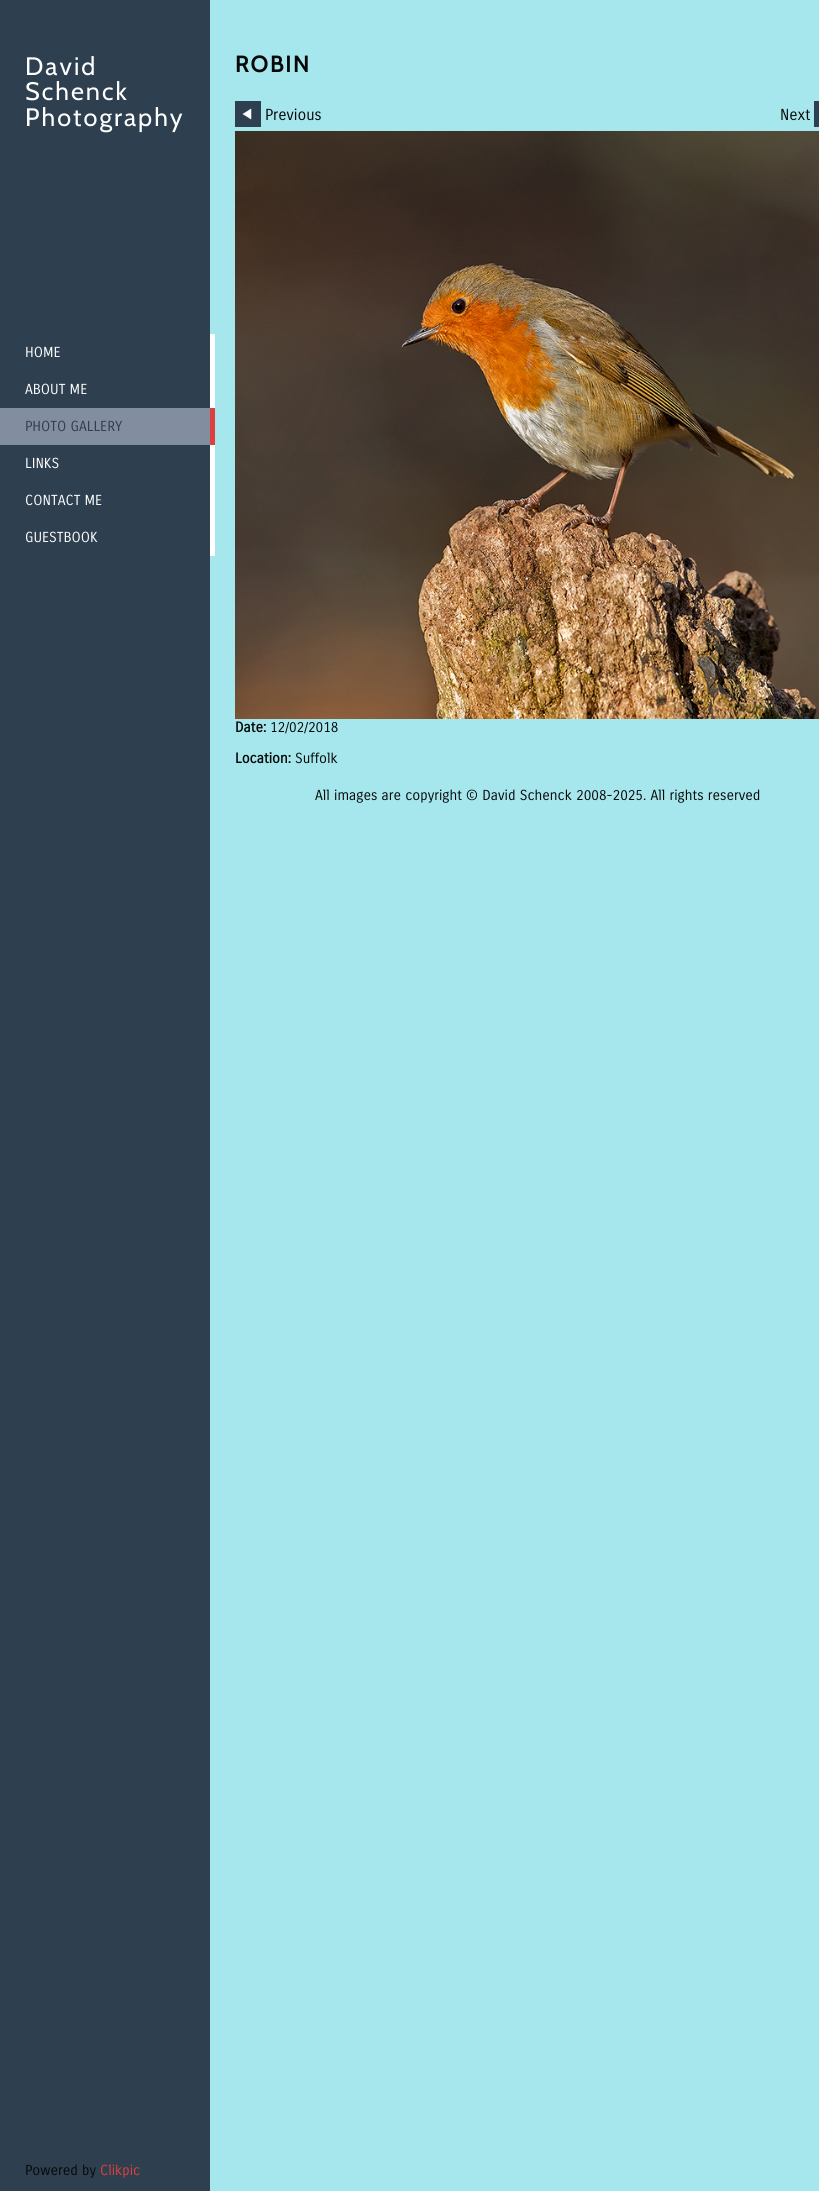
#include <cairo.h>
#include <math.h>
#include <stddef.h>


static void set_color(cairo_t *cr, unsigned color) {
    cairo_set_source_rgb(cr, (color >> 16) / 255.0, (color >> 8 & 255) / 255.0, (color & 255) / 255.0);
}

static void draw_text(cairo_t *cr, double x, double y, const char *s, const char *family, double size, int italic, int bold, unsigned color) {
    cairo_select_font_face(cr, family, italic ? CAIRO_FONT_SLANT_ITALIC : CAIRO_FONT_SLANT_NORMAL,
        bold ? CAIRO_FONT_WEIGHT_BOLD : CAIRO_FONT_WEIGHT_NORMAL);
    cairo_set_font_size(cr, size);
    set_color(cr, color);
    cairo_move_to(cr, x, y);
    cairo_show_text(cr, s);
}

static void draw_spaced(cairo_t *cr, double x, double y, const char *s, double letter, double word) {
    cairo_move_to(cr, x, y);
    while (*s) {
        char ch[5] = {0};
        int n = 0;
        do ch[n++] = *s++; while ((*s & 0xC0) == 0x80);
        cairo_show_text(cr, ch);
        cairo_rel_move_to(cr, letter + word * (*ch == ' '), 0);
    }
}

static void fill_rect(cairo_t *cr, double x, double y, double w, double h, unsigned color) {
    set_color(cr, color);
    cairo_rectangle(cr, x, y, w, h);
    cairo_fill(cr);
}

static void draw_image(cairo_t *cr, const char *path, double x, double y, double w, double h) {
    cairo_surface_t *image = cairo_image_surface_create_from_png(path);
    cairo_save(cr);
    cairo_set_source_surface(cr, image, x, y);
    cairo_rectangle(cr, x, y, w, h);
    cairo_fill(cr);
    cairo_restore(cr);
    cairo_surface_destroy(image);
}

int main(void) {
    cairo_surface_t *surface = cairo_image_surface_create(CAIRO_FORMAT_RGB24, 819, 2191);
    cairo_t *cr = cairo_create(surface);
    cairo_font_options_t *options = cairo_font_options_create();
    cairo_font_options_set_hint_metrics(options, CAIRO_HINT_METRICS_OFF);
    cairo_font_options_set_hint_style(options, CAIRO_HINT_STYLE_NONE);
    cairo_set_font_options(cr, options);
    cairo_set_miter_limit(cr, 4);
    set_color(cr, 0xA5E7ED);
    cairo_paint(cr);
    fill_rect(cr, 0, 0, 210, 2191, 0x2E3F4F);
    cairo_select_font_face(cr, "Cabin", CAIRO_FONT_SLANT_NORMAL, CAIRO_FONT_WEIGHT_NORMAL);
    cairo_set_font_size(cr, 25.25);
    set_color(cr, 0xFFFFFF);
    draw_spaced(cr, 25, 75, "David", 2, 0);
    draw_spaced(cr, 25, 100, "Schenck", 2, 0);
    draw_spaced(cr, 25, 126, "Photography", 2, 0);
    fill_rect(cr, 210, 334, 5, 74, 0xFFFFFF);
    draw_text(cr, 25, 357, "HOME", "Carrois Gothic", 14.1, 0, 0, 0xFFFFFF);
    draw_text(cr, 25, 394, "ABOUT ME", "Carrois Gothic", 14.1, 0, 0, 0xFFFFFF);
    fill_rect(cr, 0, 408, 210, 37, 0x838DA0);
    fill_rect(cr, 210, 408, 5, 37, 0xDC413D);
    draw_text(cr, 25, 431, "PHOTO GALLERY", "Carrois Gothic", 14.1, 0, 0, 0x2E3F4F);
    fill_rect(cr, 210, 445, 5, 111, 0xFFFFFF);
    draw_text(cr, 25, 468, "LINKS", "Carrois Gothic", 14.1, 0, 0, 0xFFFFFF);
    draw_text(cr, 25, 505, "CONTACT ME", "Carrois Gothic", 14.1, 0, 0, 0xFFFFFF);
    draw_text(cr, 25, 542, "GUESTBOOK", "Carrois Gothic", 14.1, 0, 0, 0xFFFFFF);
    cairo_select_font_face(cr, "Cabin", CAIRO_FONT_SLANT_NORMAL, CAIRO_FONT_WEIGHT_BOLD);
    cairo_set_font_size(cr, 22.5);
    set_color(cr, 0x080808);
    draw_spaced(cr, 235, 72, "ROBIN", 2, 0);
    fill_rect(cr, 235, 101, 26, 26, 0x2E3F4F);
    draw_image(cr, "assets/img1.png", 242, 108, 10, 12);
    draw_text(cr, 265, 120, "Previous", "Carrois Gothic", 15.5, 0, 0, 0x080808);
    draw_text(cr, 780, 120, "Next", "Carrois Gothic", 15.5, 0, 0, 0x080808);
    fill_rect(cr, 814, 101, 5, 26, 0x2E3F4F);
    draw_image(cr, "assets/img2.png", 235, 131, 584, 588);
    draw_text(cr, 235, 732, "Date:", "Carrois Gothic", 14.1, 0, 1, 0x080808);
    draw_text(cr, 270, 732, "12/02/2018", "Carrois Gothic", 14.1, 0, 0, 0x080808);
    draw_text(cr, 235, 763, "Location:", "Carrois Gothic", 14.1, 0, 1, 0x080808);
    draw_text(cr, 295, 763, "Suffolk", "Carrois Gothic", 14.1, 0, 0, 0x080808);
    draw_text(cr, 315, 800, "All images are copyright © David Schenck 2008-2025. All rights reserved", "Carrois Gothic", 14.1, 0, 0, 0x080808);
    draw_text(cr, 25, 2175, "Powered by", "Carrois Gothic", 14.1, 0, 0, 0x080808);
    draw_text(cr, 100, 2175, "Clikpic", "Carrois Gothic", 14.1, 0, 0, 0xDC413D);
    cairo_surface_write_to_png(surface, "output.png");
    cairo_font_options_destroy(options);
    cairo_destroy(cr);
    cairo_surface_destroy(surface);
    return 0;
}
